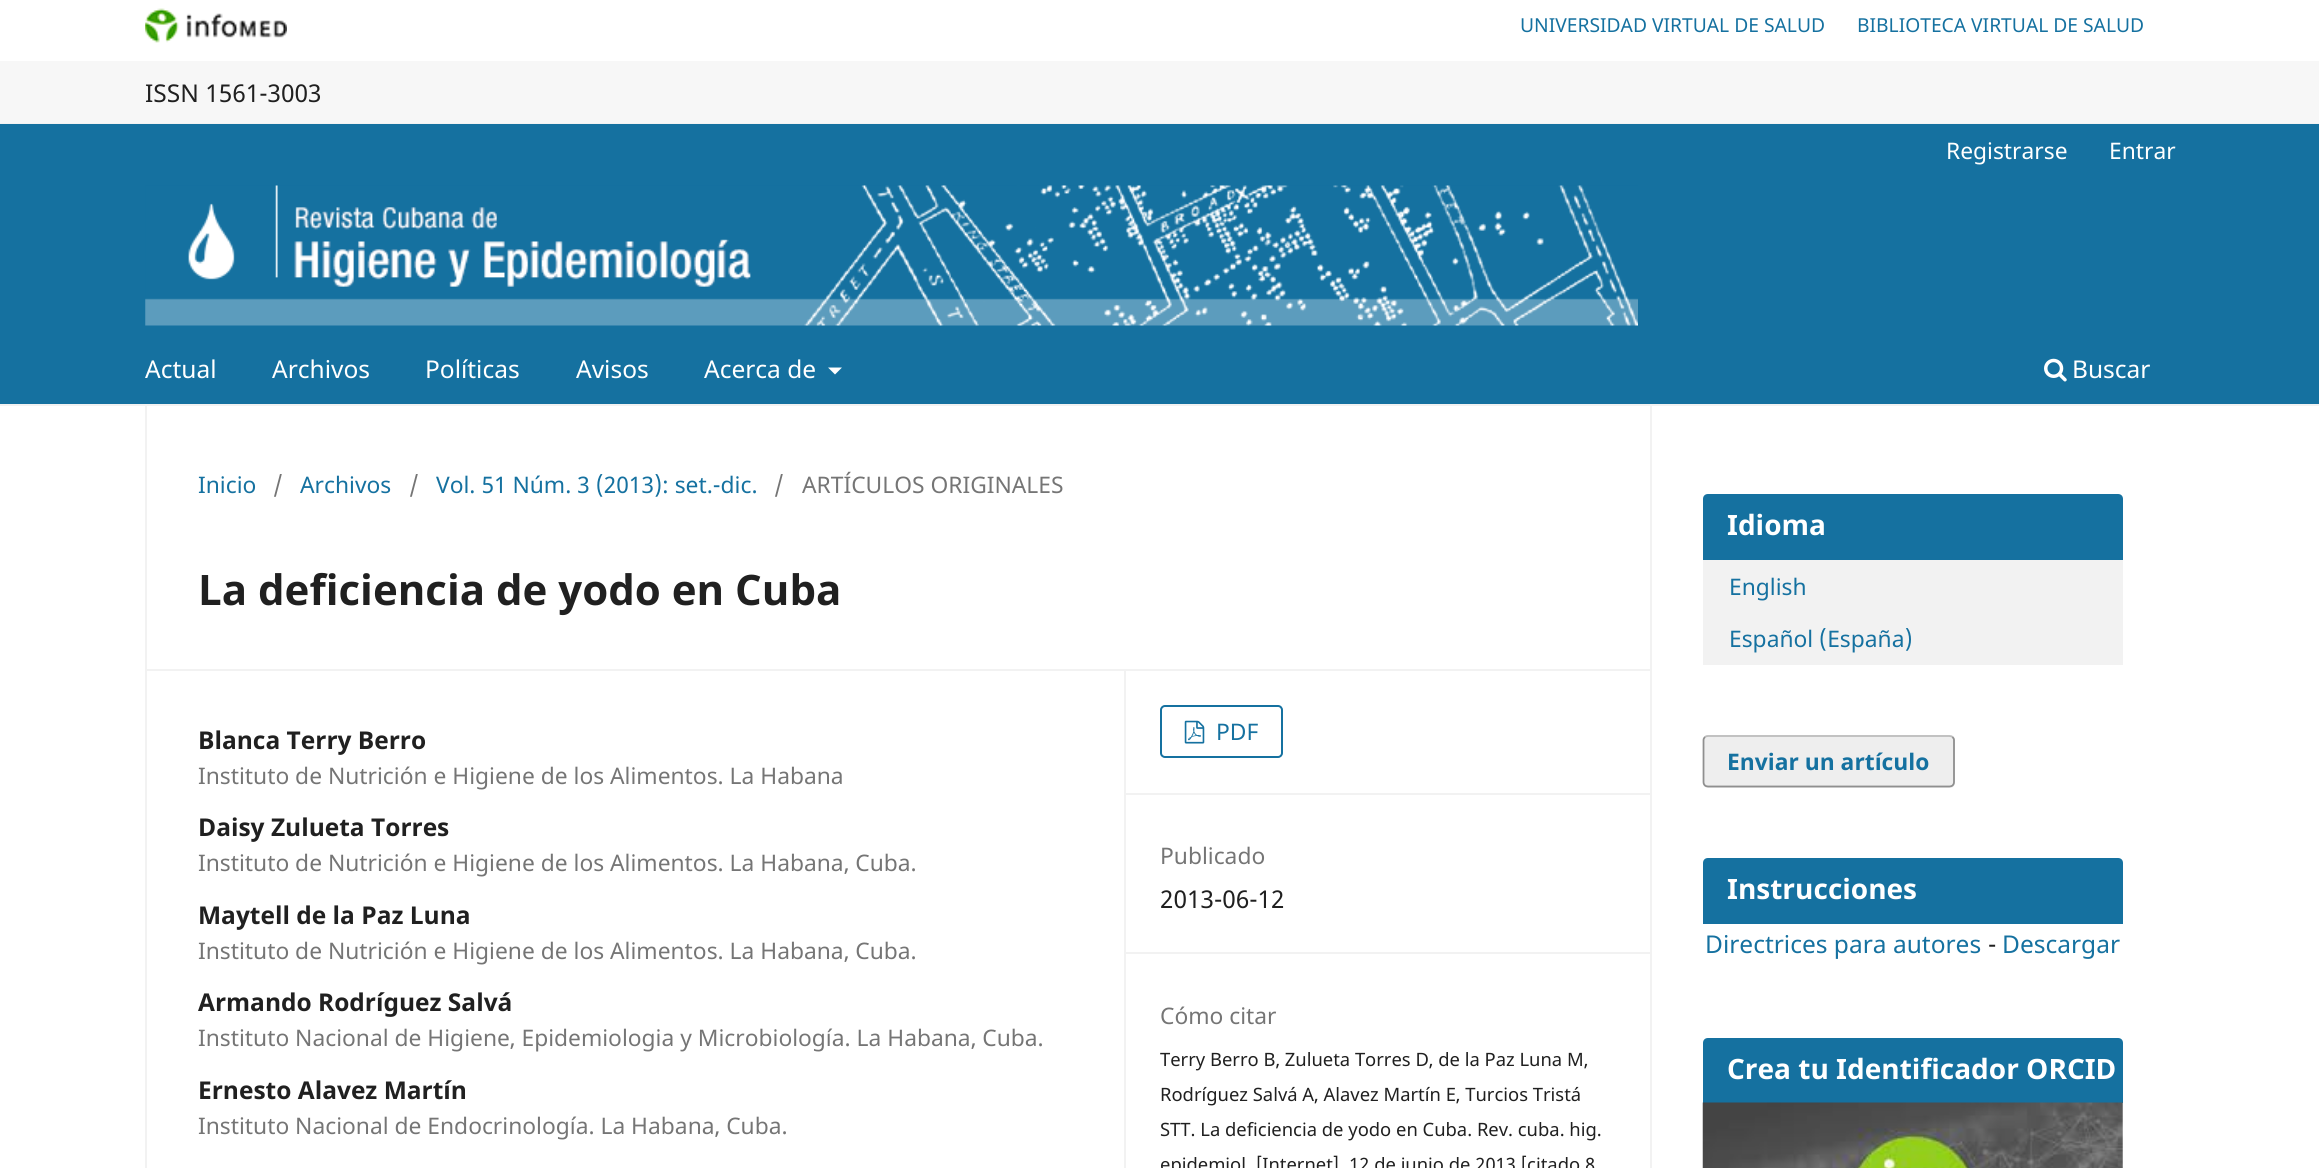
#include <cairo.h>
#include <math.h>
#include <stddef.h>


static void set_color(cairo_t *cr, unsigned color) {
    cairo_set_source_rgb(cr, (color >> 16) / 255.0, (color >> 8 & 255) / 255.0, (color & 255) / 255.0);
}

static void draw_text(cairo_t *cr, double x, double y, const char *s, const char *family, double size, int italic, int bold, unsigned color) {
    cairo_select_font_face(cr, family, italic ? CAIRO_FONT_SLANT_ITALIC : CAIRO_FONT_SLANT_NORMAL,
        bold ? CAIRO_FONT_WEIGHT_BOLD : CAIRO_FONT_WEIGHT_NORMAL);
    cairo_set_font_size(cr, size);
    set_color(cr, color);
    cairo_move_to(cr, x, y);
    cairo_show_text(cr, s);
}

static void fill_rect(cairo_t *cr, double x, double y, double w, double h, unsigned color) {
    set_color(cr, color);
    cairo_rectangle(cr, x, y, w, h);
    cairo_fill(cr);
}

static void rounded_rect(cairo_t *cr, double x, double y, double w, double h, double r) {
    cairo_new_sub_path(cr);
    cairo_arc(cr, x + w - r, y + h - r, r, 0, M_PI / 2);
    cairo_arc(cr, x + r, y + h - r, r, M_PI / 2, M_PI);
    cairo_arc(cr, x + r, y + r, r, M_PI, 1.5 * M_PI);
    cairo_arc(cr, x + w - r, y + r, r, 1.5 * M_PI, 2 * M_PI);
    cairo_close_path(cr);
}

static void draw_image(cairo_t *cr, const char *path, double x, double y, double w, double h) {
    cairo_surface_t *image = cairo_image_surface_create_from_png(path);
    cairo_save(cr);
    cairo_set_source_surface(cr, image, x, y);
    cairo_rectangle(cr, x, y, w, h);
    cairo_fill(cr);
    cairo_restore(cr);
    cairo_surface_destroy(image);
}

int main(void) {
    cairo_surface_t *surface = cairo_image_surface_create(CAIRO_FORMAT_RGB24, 2319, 1168);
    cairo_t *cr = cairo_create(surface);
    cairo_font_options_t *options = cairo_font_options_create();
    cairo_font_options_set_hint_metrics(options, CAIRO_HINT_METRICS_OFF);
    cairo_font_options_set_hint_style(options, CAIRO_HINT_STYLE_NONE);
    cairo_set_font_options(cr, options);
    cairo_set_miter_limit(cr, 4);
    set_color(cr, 0xFFFFFF);
    cairo_paint(cr);
    draw_image(cr, "assets/img1.png", 145, 8, 142, 35);
    draw_text(cr, 1520, 32, "UNIVERSIDAD VIRTUAL DE SALUD", "Noto Sans", 19.25, 0, 0, 0x1571A0);
    draw_text(cr, 1857, 32, "BIBLIOTECA VIRTUAL DE SALUD", "Noto Sans", 19.25, 0, 0, 0x1571A0);
    fill_rect(cr, 0, 61, 2319, 62, 0xF7F7F7);
    fill_rect(cr, 0, 123, 2319, 1, 0xF2F2F2);
    draw_text(cr, 145, 102, "ISSN 1561-3003", "Noto Sans", 24.5, 0, 0, 0x202020);
    fill_rect(cr, 0, 124, 2319, 280, 0x1571A0);
    fill_rect(cr, 0, 404, 2319, 2, 0xF2F2F2);
    draw_text(cr, 1946, 159, "Registrarse", "Noto Sans", 22.8, 0, 0, 0xFFFFFF);
    draw_text(cr, 2109, 159, "Entrar", "Noto Sans", 22.8, 0, 0, 0xFFFFFF);
    draw_text(cr, 145, 378, "Actual", "Noto Sans", 24.5, 0, 0, 0xFFFFFF);
    draw_text(cr, 272, 378, "Archivos", "Noto Sans", 24.5, 0, 0, 0xFFFFFF);
    draw_text(cr, 425, 378, "Políticas", "Noto Sans", 24.5, 0, 0, 0xFFFFFF);
    draw_text(cr, 576, 378, "Avisos", "Noto Sans", 24.5, 0, 0, 0xFFFFFF);
    draw_text(cr, 704, 378, "Acerca de", "Noto Sans", 24.5, 0, 0, 0xFFFFFF);
    cairo_new_path(cr);
    cairo_move_to(cr, 828, 367.5);
    cairo_line_to(cr, 842, 367.5);
    cairo_line_to(cr, 835, 374.5);
    cairo_close_path(cr);
    cairo_fill(cr);
    draw_image(cr, "assets/img2.png", 2044, 358, 23, 24);
    draw_text(cr, 2072, 378, "Buscar", "Noto Sans", 24.5, 0, 0, 0xFFFFFF);
    draw_image(cr, "assets/img3.png", 145, 185, 1493, 141);
    fill_rect(cr, 145, 669, 1505, 2, 0xF2F2F2);
    fill_rect(cr, 145, 406, 2, 762, 0xF2F2F2);
    draw_text(cr, 198, 493, "Inicio", "Noto Sans", 22.8, 0, 0, 0x1571A0);
    draw_text(cr, 273, 493, "/", "Noto Sans", 22.8, 0, 0, 0x757575);
    draw_text(cr, 300, 493, "Archivos", "Noto Sans", 22.8, 0, 0, 0x1571A0);
    draw_text(cr, 409, 493, "/", "Noto Sans", 22.8, 0, 0, 0x757575);
    draw_text(cr, 436, 493, "Vol. 51 Núm. 3 (2013): set.-dic.", "Noto Sans", 22.8, 0, 0, 0x1571A0);
    draw_text(cr, 774, 493, "/", "Noto Sans", 22.8, 0, 0, 0x757575);
    draw_text(cr, 802, 493, "ARTÍCULOS ORIGINALES", "Noto Sans", 22.8, 0, 0, 0x757575);
    draw_text(cr, 198, 605, "La deficiencia de yodo en Cuba", "Noto Sans", 42, 0, 1, 0x202020);
    fill_rect(cr, 1124, 670, 2, 498, 0xF2F2F2);
    draw_text(cr, 198, 749, "Blanca Terry Berro", "Noto Sans", 24.5, 0, 1, 0x202020);
    draw_text(cr, 198, 784, "Instituto de Nutrición e Higiene de los Alimentos. La Habana", "Noto Sans", 22.8, 0, 0, 0x757575);
    draw_text(cr, 198, 836, "Daisy Zulueta Torres", "Noto Sans", 24.5, 0, 1, 0x202020);
    draw_text(cr, 198, 871, "Instituto de Nutrición e Higiene de los Alimentos. La Habana, Cuba.", "Noto Sans", 22.8, 0, 0, 0x757575);
    draw_text(cr, 198, 924, "Maytell de la Paz Luna", "Noto Sans", 24.5, 0, 1, 0x202020);
    draw_text(cr, 198, 959, "Instituto de Nutrición e Higiene de los Alimentos. La Habana, Cuba.", "Noto Sans", 22.8, 0, 0, 0x757575);
    draw_text(cr, 198, 1011, "Armando Rodríguez Salvá", "Noto Sans", 24.5, 0, 1, 0x202020);
    draw_text(cr, 198, 1046, "Instituto Nacional de Higiene, Epidemiologia y Microbiología. La Habana, Cuba.", "Noto Sans", 22.8, 0, 0, 0x757575);
    draw_text(cr, 198, 1099, "Ernesto Alavez Martín", "Noto Sans", 24.5, 0, 1, 0x202020);
    draw_text(cr, 198, 1134, "Instituto Nacional de Endocrinología. La Habana, Cuba.", "Noto Sans", 22.8, 0, 0, 0x757575);
    fill_rect(cr, 1125, 793, 525, 2, 0xF2F2F2);
    rounded_rect(cr, 1161, 706, 121, 51, 4);
    set_color(cr, 0x1571A0);
    cairo_stroke(cr);
    draw_image(cr, "assets/img4.png", 1184, 720, 21, 24);
    draw_text(cr, 1216, 740, "PDF", "Noto Sans", 22.8, 0, 0, 0x1571A0);
    fill_rect(cr, 1125, 952, 525, 2, 0xF2F2F2);
    draw_text(cr, 1160, 864, "Publicado", "Noto Sans", 22.8, 0, 0, 0x757575);
    draw_text(cr, 1160, 908, "2013-06-12", "Noto Sans", 24.5, 0, 0, 0x202020);
    draw_text(cr, 1160, 1024, "Cómo citar", "Noto Sans", 22.8, 0, 0, 0x757575);
    draw_text(cr, 1160, 1066, "Terry Berro B, Zulueta Torres D, de la Paz Luna M,", "Noto Sans", 18.4, 0, 0, 0x202020);
    draw_text(cr, 1160, 1101, "Rodríguez Salvá A, Alavez Martín E, Turcios Tristá", "Noto Sans", 18.4, 0, 0, 0x202020);
    draw_text(cr, 1160, 1136, "STT. La deficiencia de yodo en Cuba. Rev. cuba. hig.", "Noto Sans", 18.4, 0, 0, 0x202020);
    draw_text(cr, 1160, 1171, "epidemiol. [Internet]. 12 de junio de 2013 [citado 8", "Noto Sans", 18.4, 0, 0, 0x202020);
    fill_rect(cr, 1650, 406, 2, 762, 0xF2F2F2);
    set_color(cr, 0x1571A0);
    cairo_new_path(cr);
    cairo_move_to(cr, 1708, 494);
    cairo_line_to(cr, 2118, 494);
    cairo_curve_to(cr, 2121, 494, 2123, 496, 2123, 499);
    cairo_line_to(cr, 2123, 560);
    cairo_line_to(cr, 1703, 560);
    cairo_line_to(cr, 1703, 499);
    cairo_curve_to(cr, 1703, 496, 1705, 494, 1708, 494);
    cairo_close_path(cr);
    cairo_fill(cr);
    draw_text(cr, 1727, 535, "Idioma", "Noto Sans", 28, 0, 1, 0xFFFFFF);
    fill_rect(cr, 1703, 560, 420, 105, 0xF2F2F2);
    draw_text(cr, 1729, 595, "English", "Noto Sans", 22.8, 0, 0, 0x1571A0);
    draw_text(cr, 1729, 647, "Español (España)", "Noto Sans", 22.8, 0, 0, 0x1571A0);
    set_color(cr, 0xEEEEEE);
    rounded_rect(cr, 1703, 735, 252, 53, 5);
    cairo_fill(cr);
    cairo_new_path(cr);
    cairo_move_to(cr, 1705, 737);
    cairo_curve_to(cr, 1705.5, 736.5, 1707, 736, 1708, 736);
    cairo_line_to(cr, 1949.5, 736);
    cairo_curve_to(cr, 1950.5, 736, 1952, 736.5, 1952.5, 737);
    set_color(cr, 0xBBBBBB);
    cairo_set_line_width(cr, 1.8);
    cairo_stroke(cr);
    cairo_new_path(cr);
    cairo_move_to(cr, 1952.5, 737);
    cairo_curve_to(cr, 1953.5, 738, 1954, 739, 1954, 740);
    cairo_line_to(cr, 1954, 782);
    cairo_curve_to(cr, 1954, 783.5, 1953.5, 784.5, 1952.5, 785.5);
    cairo_curve_to(cr, 1952, 786, 1950.5, 786.5, 1949.5, 786.5);
    cairo_line_to(cr, 1708, 786.5);
    cairo_curve_to(cr, 1707, 786.5, 1705.5, 786, 1705, 785.5);
    cairo_curve_to(cr, 1704, 784.5, 1703.5, 783.5, 1703.5, 782);
    cairo_line_to(cr, 1703.5, 740);
    cairo_curve_to(cr, 1703.5, 739, 1704, 738, 1705, 737);
    cairo_set_source_rgba(cr, 0, 0, 0, 0.4);
    cairo_stroke(cr);
    draw_text(cr, 1727, 770, "Enviar un artículo", "Noto Sans", 22.8, 0, 1, 0x1571A0);
    cairo_new_path(cr);
    cairo_move_to(cr, 1708, 858);
    cairo_line_to(cr, 2118, 858);
    cairo_curve_to(cr, 2121, 858, 2123, 860, 2123, 863);
    cairo_line_to(cr, 2123, 924);
    cairo_line_to(cr, 1703, 924);
    cairo_line_to(cr, 1703, 863);
    cairo_curve_to(cr, 1703, 860, 1705, 858, 1708, 858);
    cairo_close_path(cr);
    cairo_fill(cr);
    draw_text(cr, 1727, 899, "Instrucciones", "Noto Sans", 28, 0, 1, 0xFFFFFF);
    draw_text(cr, 1705, 953, "Directrices para autores", "Noto Sans", 24.5, 0, 0, 0x1571A0);
    draw_text(cr, 1988, 953, "-", "Noto Sans", 24.5, 0, 0, 0x202020);
    draw_text(cr, 2002, 953, "Descargar", "Noto Sans", 24.5, 0, 0, 0x1571A0);
    cairo_new_path(cr);
    cairo_move_to(cr, 1708, 1038);
    cairo_line_to(cr, 2118, 1038);
    cairo_curve_to(cr, 2121, 1038, 2123, 1040, 2123, 1043);
    cairo_line_to(cr, 2123, 1103);
    cairo_line_to(cr, 1703, 1103);
    cairo_line_to(cr, 1703, 1043);
    cairo_curve_to(cr, 1703, 1040, 1705, 1038, 1708, 1038);
    cairo_close_path(cr);
    cairo_fill(cr);
    draw_text(cr, 1727, 1079, "Crea tu Identificador ORCID", "Noto Sans", 28, 0, 1, 0xFFFFFF);
    draw_image(cr, "assets/img5.png", 1702, 1102, 421, 66);
    cairo_surface_write_to_png(surface, "output.png");
    cairo_font_options_destroy(options);
    cairo_destroy(cr);
    cairo_surface_destroy(surface);
    return 0;
}
